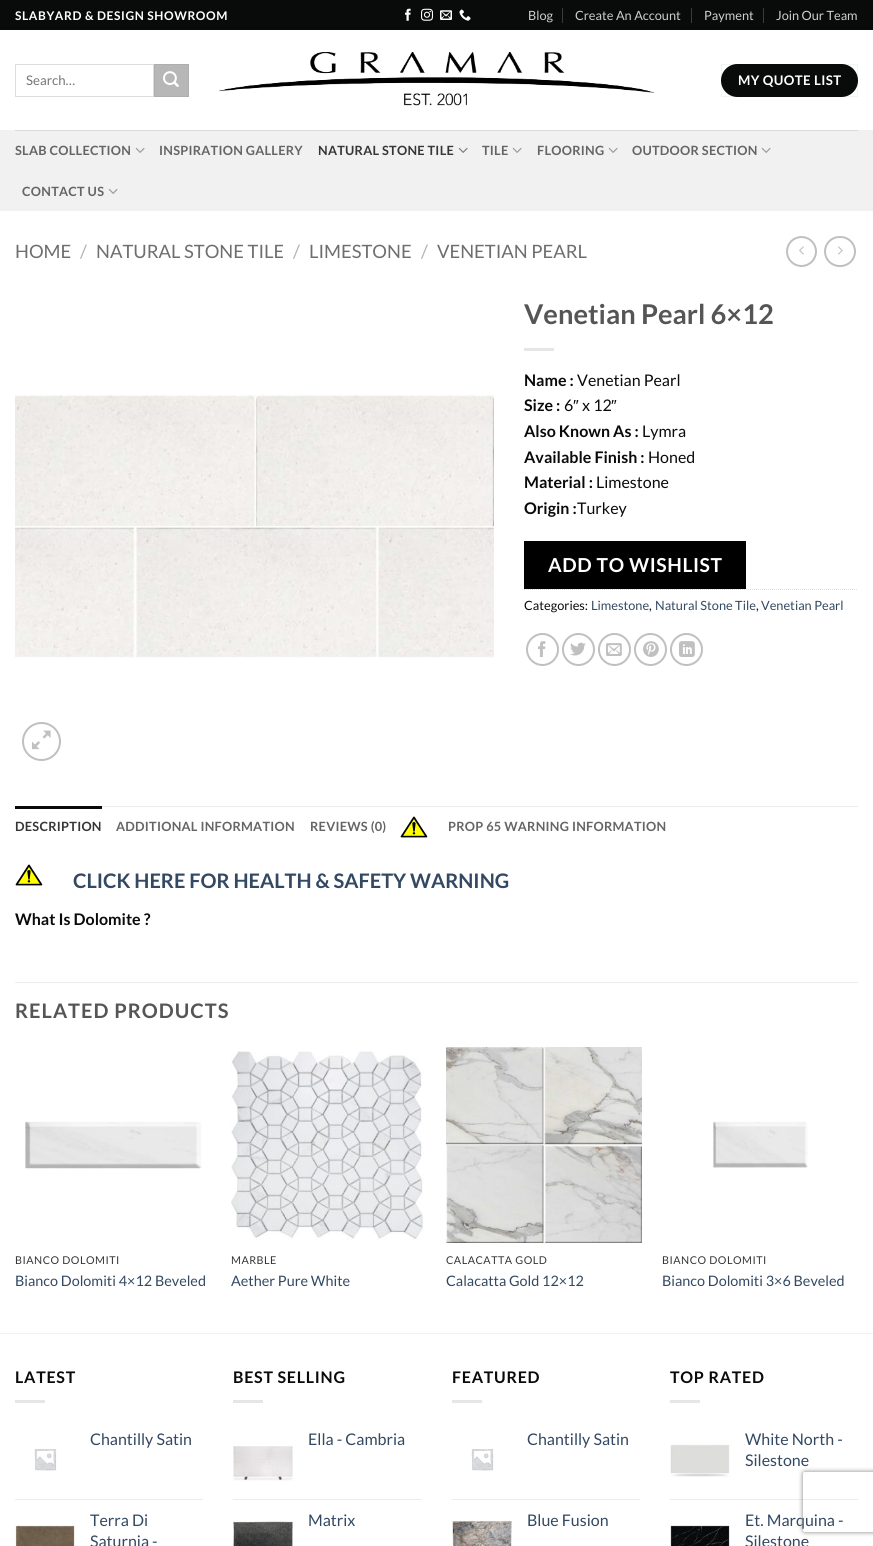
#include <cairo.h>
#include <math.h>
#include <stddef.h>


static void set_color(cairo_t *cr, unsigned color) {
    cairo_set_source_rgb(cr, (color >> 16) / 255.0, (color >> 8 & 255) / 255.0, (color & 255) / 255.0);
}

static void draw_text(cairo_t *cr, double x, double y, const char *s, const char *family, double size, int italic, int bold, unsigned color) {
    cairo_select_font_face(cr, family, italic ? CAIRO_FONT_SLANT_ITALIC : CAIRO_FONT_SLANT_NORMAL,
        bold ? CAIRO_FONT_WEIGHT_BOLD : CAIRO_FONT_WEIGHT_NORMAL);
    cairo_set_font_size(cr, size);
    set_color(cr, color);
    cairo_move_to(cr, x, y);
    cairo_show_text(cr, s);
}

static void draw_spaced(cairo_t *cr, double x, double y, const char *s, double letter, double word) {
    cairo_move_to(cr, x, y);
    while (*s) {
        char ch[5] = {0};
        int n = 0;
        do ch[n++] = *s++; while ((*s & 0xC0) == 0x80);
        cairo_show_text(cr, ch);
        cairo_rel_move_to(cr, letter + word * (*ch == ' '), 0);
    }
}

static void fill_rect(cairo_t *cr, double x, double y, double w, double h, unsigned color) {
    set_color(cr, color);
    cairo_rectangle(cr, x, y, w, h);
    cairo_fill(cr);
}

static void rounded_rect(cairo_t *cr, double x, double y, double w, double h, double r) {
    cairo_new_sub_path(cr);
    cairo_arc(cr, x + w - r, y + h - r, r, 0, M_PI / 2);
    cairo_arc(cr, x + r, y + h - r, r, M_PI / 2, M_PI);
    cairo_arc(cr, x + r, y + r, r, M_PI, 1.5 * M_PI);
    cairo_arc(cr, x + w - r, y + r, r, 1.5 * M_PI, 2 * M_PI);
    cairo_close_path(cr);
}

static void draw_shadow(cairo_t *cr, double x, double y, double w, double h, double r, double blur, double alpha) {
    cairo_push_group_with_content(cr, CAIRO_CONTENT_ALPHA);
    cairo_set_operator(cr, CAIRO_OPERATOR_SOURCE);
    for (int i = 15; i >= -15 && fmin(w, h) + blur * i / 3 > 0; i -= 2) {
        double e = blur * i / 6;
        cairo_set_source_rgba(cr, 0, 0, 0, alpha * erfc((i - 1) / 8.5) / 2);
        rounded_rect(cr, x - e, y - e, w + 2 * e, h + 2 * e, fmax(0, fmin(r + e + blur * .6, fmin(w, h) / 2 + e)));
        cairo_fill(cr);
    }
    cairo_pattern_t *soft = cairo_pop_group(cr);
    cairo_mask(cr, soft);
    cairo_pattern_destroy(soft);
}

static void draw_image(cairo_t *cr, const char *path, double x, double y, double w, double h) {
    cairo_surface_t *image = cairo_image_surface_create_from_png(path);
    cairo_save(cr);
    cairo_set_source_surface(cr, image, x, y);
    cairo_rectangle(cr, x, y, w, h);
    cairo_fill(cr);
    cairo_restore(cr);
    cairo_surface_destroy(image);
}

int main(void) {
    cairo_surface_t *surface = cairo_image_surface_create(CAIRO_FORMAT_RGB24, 873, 1546);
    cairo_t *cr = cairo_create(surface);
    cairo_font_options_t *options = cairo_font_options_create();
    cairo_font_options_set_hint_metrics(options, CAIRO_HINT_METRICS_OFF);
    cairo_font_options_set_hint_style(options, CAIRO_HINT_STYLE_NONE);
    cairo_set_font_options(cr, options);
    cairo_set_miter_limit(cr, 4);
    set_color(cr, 0xFFFFFF);
    cairo_paint(cr);
    fill_rect(cr, 0, 0, 873, 30, 0x090A0A);
    cairo_select_font_face(cr, "Lato", CAIRO_FONT_SLANT_NORMAL, CAIRO_FONT_WEIGHT_BOLD);
    cairo_set_font_size(cr, 12);
    set_color(cr, 0xFFFFFF);
    draw_spaced(cr, 15, 20, "SLABYARD & DESIGN SHOWROOM", 0.6, 0);
    draw_image(cr, "assets/img1.png", 405, 8, 6, 13);
    draw_image(cr, "assets/img2.png", 421, 8, 12, 13);
    draw_image(cr, "assets/img3.png", 440, 10, 12, 10);
    draw_image(cr, "assets/img4.png", 459, 9, 12, 12);
    draw_text(cr, 528, 20, "Blog", "Lato", 12.75, 0, 0, 0xCECECE);
    fill_rect(cr, 562, 8, 1, 15, 0x3A3B3B);
    draw_text(cr, 575, 20, "Create An Account", "Lato", 12.75, 0, 0, 0xCECECE);
    fill_rect(cr, 691, 8, 1, 15, 0x3A3B3B);
    draw_text(cr, 704, 20, "Payment", "Lato", 12.75, 0, 0, 0xCECECE);
    fill_rect(cr, 763, 8, 1, 15, 0x3A3B3B);
    draw_text(cr, 776, 20, "Join Our Team", "Lato", 12.75, 0, 0, 0xCECECE);
    cairo_rectangle(cr, 15.5, 64.5, 138, 32);
    set_color(cr, 0xDDDDDD);
    cairo_set_line_width(cr, 1);
    cairo_stroke(cr);
    draw_text(cr, 26, 85, "Search…", "Lato", 13.25, 0, 0, 0x757575);
    set_color(cr, 0xB7B7B7);
    cairo_rectangle(cr, 154.5, 64.5, 34, 32);
    cairo_fill_preserve(cr);
    set_color(cr, 0xAEAEAE);
    cairo_stroke(cr);
    draw_image(cr, "assets/img5.png", 163, 71, 16, 16);
    draw_image(cr, "assets/img6.png", 219, 52, 435, 54);
    set_color(cr, 0x090A0A);
    rounded_rect(cr, 721, 64, 137, 33, 16.5);
    cairo_fill(cr);
    cairo_rectangle(cr, 721.5, 64.5, 136, 32);
    cairo_set_source_rgba(cr, 0, 0, 0, 0.05);
    cairo_stroke(cr);
    cairo_select_font_face(cr, "Lato", CAIRO_FONT_SLANT_NORMAL, CAIRO_FONT_WEIGHT_BOLD);
    set_color(cr, 0xFFFFFF);
    draw_spaced(cr, 738, 85, "MY QUOTE LIST", 0.4, 0);
    fill_rect(cr, 0, 130, 873, 81, 0xF1F1F1);
    fill_rect(cr, 15, 130, 843, 1, 0xDADADA);
    cairo_set_font_size(cr, 12.75);
    set_color(cr, 0x656565);
    draw_spaced(cr, 15, 155, "SLAB COLLECTION", 0.25, 0);
    draw_image(cr, "assets/img7.png", 135, 147, 10, 6);
    draw_spaced(cr, 159, 155, "INSPIRATION GALLERY", 0.25, 0);
    set_color(cr, 0x363636);
    draw_spaced(cr, 318, 155, "NATURAL STONE TILE", 0.25, 0);
    draw_image(cr, "assets/img8.png", 458, 147, 10, 6);
    set_color(cr, 0x656565);
    draw_spaced(cr, 482, 155, "TILE", 0.25, 0);
    draw_image(cr, "assets/img7.png", 512, 147, 10, 6);
    draw_spaced(cr, 537, 155, "FLOORING", 0.25, 0);
    draw_image(cr, "assets/img7.png", 608, 147, 10, 6);
    draw_spaced(cr, 632, 155, "OUTDOOR SECTION", 0.25, 0);
    draw_image(cr, "assets/img7.png", 761, 147, 10, 6);
    draw_spaced(cr, 22, 196, "CONTACT US", 0.25, 0);
    draw_image(cr, "assets/img7.png", 108, 188, 10, 6);
    draw_text(cr, 15, 258, "HOME", "Lato", 18.4, 0, 0, 0x6E6E6E);
    draw_text(cr, 80, 258, "/", "Lato", 18.4, 0, 0, 0xB2B2B2);
    draw_text(cr, 96, 258, "NATURAL STONE TILE", "Lato", 18.4, 0, 0, 0x6E6E6E);
    draw_text(cr, 293, 258, "/", "Lato", 18.4, 0, 0, 0xB2B2B2);
    draw_text(cr, 309, 258, "LIMESTONE", "Lato", 18.4, 0, 0, 0x6E6E6E);
    draw_text(cr, 421, 258, "/", "Lato", 18.4, 0, 0, 0xB2B2B2);
    draw_text(cr, 437, 258, "VENETIAN PEARL", "Lato", 18.4, 0, 0, 0x6E6E6E);
    cairo_new_path(cr);
    cairo_arc(cr, 801.5, 251.5, 14.5, 0, 2 * M_PI);
    set_color(cr, 0xC0C0C0);
    cairo_set_line_width(cr, 2);
    cairo_stroke(cr);
    draw_image(cr, "assets/img9.png", 799, 246, 5, 9);
    rounded_rect(cr, 825, 237, 30, 29, 14.5);
    cairo_stroke(cr);
    draw_image(cr, "assets/img10.png", 838, 246, 5, 9);
    draw_image(cr, "assets/img11.png", 15, 394, 479, 264);
    cairo_arc(cr, 41.5, 741.5, 18.5, 0, 2 * M_PI);
    cairo_stroke(cr);
    draw_image(cr, "assets/img12.png", 32, 730, 19, 20);
    draw_text(cr, 524, 324, "Venetian Pearl 6×12", "Lato", 27.25, 0, 1, 0x555555);
    fill_rect(cr, 524, 348, 30, 3, 0xE6E6E6);
    draw_text(cr, 524, 386, "Name :", "Lato", 16, 0, 1, 0x0A0A0A);
    draw_text(cr, 577, 386, "Venetian Pearl", "Lato", 16, 0, 0, 0x0A0A0A);
    draw_text(cr, 524, 411, "Size :", "Lato", 16, 0, 1, 0x0A0A0A);
    draw_text(cr, 564, 411, "6", "Lato", 16, 0, 0, 0x0A0A0A);
    draw_text(cr, 573, 411, "″", "Liberation Sans", 16, 0, 0, 0x0A0A0A);
    draw_text(cr, 582, 411, "x 12", "Lato", 16, 0, 0, 0x0A0A0A);
    draw_text(cr, 611, 411, "″", "Liberation Sans", 16, 0, 0, 0x0A0A0A);
    draw_text(cr, 524, 437, "Also Known As :", "Lato", 16, 0, 1, 0x0A0A0A);
    draw_text(cr, 642, 437, "Lymra", "Lato", 16, 0, 0, 0x0A0A0A);
    draw_text(cr, 524, 463, "Available Finish :", "Lato", 16, 0, 1, 0x0A0A0A);
    draw_text(cr, 648, 463, "Honed", "Lato", 16, 0, 0, 0x0A0A0A);
    draw_text(cr, 524, 488, "Material :", "Lato", 16, 0, 1, 0x0A0A0A);
    draw_text(cr, 596, 488, "Limestone", "Lato", 16, 0, 0, 0x0A0A0A);
    draw_text(cr, 524, 514, "Origin :", "Lato", 16, 0, 1, 0x0A0A0A);
    draw_text(cr, 577, 514, "Turkey", "Lato", 16, 0, 0, 0x0A0A0A);
    fill_rect(cr, 524, 541, 222, 48, 0x000000);
    cairo_select_font_face(cr, "Lato", CAIRO_FONT_SLANT_NORMAL, CAIRO_FONT_WEIGHT_BOLD);
    cairo_set_font_size(cr, 19.25);
    set_color(cr, 0xFFFFFF);
    draw_spaced(cr, 548, 572, "ADD TO WISHLIST", 0.6, 0);
    cairo_new_path(cr);
    cairo_move_to(cr, 524, 589.5);
    cairo_line_to(cr, 858, 589.5);
    set_color(cr, 0xDDDDDD);
    cairo_set_line_width(cr, 1);
    cairo_set_dash(cr, (double[]){1, 1}, 2, 0);
    cairo_stroke(cr);
    draw_text(cr, 524, 610, "Categories:", "Lato", 12.75, 0, 0, 0x0A0A0A);
    draw_text(cr, 591, 610, "Limestone", "Lato", 12.75, 0, 0, 0x334862);
    draw_text(cr, 649, 610, ",", "Lato", 12.75, 0, 0, 0x0A0A0A);
    draw_text(cr, 655, 610, "Natural Stone Tile", "Lato", 12.75, 0, 0, 0x334862);
    draw_text(cr, 756, 610, ",", "Lato", 12.75, 0, 0, 0x0A0A0A);
    draw_text(cr, 761, 610, "Venetian Pearl", "Lato", 12.75, 0, 0, 0x334862);
    cairo_new_path(cr);
    cairo_arc(cr, 542.5, 649.5, 15.5, 0, 2 * M_PI);
    set_color(cr, 0xC0C0C0);
    cairo_set_line_width(cr, 2);
    cairo_set_dash(cr, NULL, 0, 0);
    cairo_stroke(cr);
    draw_image(cr, "assets/img13.png", 538, 641, 8, 16);
    cairo_arc(cr, 578.5, 649.5, 15.5, 0, 2 * M_PI);
    cairo_stroke(cr);
    draw_image(cr, "assets/img14.png", 570, 642, 16, 14);
    cairo_arc(cr, 614.5, 649.5, 15.5, 0, 2 * M_PI);
    cairo_stroke(cr);
    draw_image(cr, "assets/img15.png", 606, 643, 16, 13);
    cairo_arc(cr, 650.5, 649.5, 15.5, 0, 2 * M_PI);
    cairo_stroke(cr);
    draw_image(cr, "assets/img16.png", 643, 641, 16, 16);
    cairo_arc(cr, 686.5, 649.5, 15.5, 0, 2 * M_PI);
    cairo_stroke(cr);
    draw_image(cr, "assets/img17.png", 679, 641, 16, 16);
    fill_rect(cr, 102, 806, 756, 1, 0xECECEC);
    fill_rect(cr, 15, 806, 87, 3, 0x090A0A);
    cairo_select_font_face(cr, "Lato", CAIRO_FONT_SLANT_NORMAL, CAIRO_FONT_WEIGHT_BOLD);
    set_color(cr, 0x363636);
    draw_spaced(cr, 15, 831, "DESCRIPTION", 0.25, 0);
    set_color(cr, 0x656565);
    draw_spaced(cr, 116, 831, "ADDITIONAL INFORMATION", 0.25, 0);
    draw_spaced(cr, 310, 831, "REVIEWS (0)", 0.25, 0);
    draw_image(cr, "assets/img18.png", 400, 816, 28, 22);
    draw_spaced(cr, 448, 831, "PROP 65 WARNING INFORMATION", 0.25, 0);
    draw_image(cr, "assets/img18.png", 15, 864, 28, 22);
    draw_text(cr, 73, 888, "CLICK HERE FOR HEALTH & SAFETY WARNING", "Lato", 20, 0, 1, 0x334862);
    draw_text(cr, 15, 925, "What Is Dolomite ?", "Lato", 16, 0, 1, 0x0A0A0A);
    fill_rect(cr, 15, 982, 843, 1, 0xECECEC);
    cairo_set_font_size(cr, 20);
    set_color(cr, 0x555555);
    draw_spaced(cr, 15, 1018, "RELATED PRODUCTS", 1, 0);
    draw_image(cr, "assets/img19.png", 25, 1121, 177, 48);
    cairo_select_font_face(cr, "Lato", CAIRO_FONT_SLANT_NORMAL, CAIRO_FONT_WEIGHT_NORMAL);
    cairo_set_font_size(cr, 10.75);
    set_color(cr, 0x363636);
    draw_spaced(cr, 15, 1264, "BIANCO DOLOMITI", 0.5, 0);
    draw_text(cr, 15, 1286, "Bianco Dolomiti 4×12 Beveled", "Lato", 14.4, 0, 0, 0x334862);
    draw_image(cr, "assets/img20.png", 231, 1051, 193, 189);
    cairo_set_font_size(cr, 10.75);
    set_color(cr, 0x363636);
    draw_spaced(cr, 231, 1264, "MARBLE", 0.5, 0);
    draw_text(cr, 231, 1286, "Aether Pure White", "Lato", 14.4, 0, 0, 0x334862);
    draw_image(cr, "assets/img21.png", 446, 1047, 196, 196);
    cairo_set_font_size(cr, 10.75);
    set_color(cr, 0x363636);
    draw_spaced(cr, 446, 1264, "CALACATTA GOLD", 0.5, 0);
    draw_text(cr, 446, 1286, "Calacatta Gold 12×12", "Lato", 14.4, 0, 0, 0x334862);
    draw_image(cr, "assets/img22.png", 713, 1121, 95, 47);
    cairo_set_font_size(cr, 10.75);
    set_color(cr, 0x363636);
    draw_spaced(cr, 662, 1264, "BIANCO DOLOMITI", 0.5, 0);
    draw_text(cr, 662, 1286, "Bianco Dolomiti 3×6 Beveled", "Lato", 14.4, 0, 0, 0x334862);
    fill_rect(cr, 0, 1333, 873, 1, 0xF2F2F2);
    cairo_select_font_face(cr, "Lato", CAIRO_FONT_SLANT_NORMAL, CAIRO_FONT_WEIGHT_BOLD);
    cairo_set_font_size(cr, 16);
    set_color(cr, 0x0A0A0A);
    draw_spaced(cr, 15, 1383, "LATEST", 0.75, 0);
    fill_rect(cr, 15, 1400, 30, 3, 0xE6E6E6);
    draw_text(cr, 90, 1445, "Chantilly Satin", "Lato", 16, 0, 0, 0x334862);
    draw_image(cr, "assets/img23.png", 34, 1449, 23, 22);
    fill_rect(cr, 15, 1499, 188, 1, 0xECECEC);
    draw_text(cr, 90, 1526, "Terra Di", "Lato", 16, 0, 0, 0x334862);
    draw_image(cr, "assets/img24.png", 15, 1525, 60, 21);
    draw_text(cr, 90, 1547, "Saturnia -", "Lato", 16, 0, 0, 0x334862);
    cairo_select_font_face(cr, "Lato", CAIRO_FONT_SLANT_NORMAL, CAIRO_FONT_WEIGHT_BOLD);
    set_color(cr, 0x0A0A0A);
    draw_spaced(cr, 233, 1383, "BEST SELLING", 0.75, 0);
    fill_rect(cr, 233, 1400, 30, 3, 0xE6E6E6);
    draw_text(cr, 308, 1445, "Ella - Cambria", "Lato", 16, 0, 0, 0x334862);
    draw_image(cr, "assets/img25.png", 233, 1446, 60, 36);
    fill_rect(cr, 233, 1499, 189, 1, 0xECECEC);
    draw_image(cr, "assets/img26.png", 233, 1521, 60, 25);
    draw_text(cr, 308, 1526, "Matrix", "Lato", 16, 0, 0, 0x334862);
    cairo_select_font_face(cr, "Lato", CAIRO_FONT_SLANT_NORMAL, CAIRO_FONT_WEIGHT_BOLD);
    set_color(cr, 0x0A0A0A);
    draw_spaced(cr, 452, 1383, "FEATURED", 0.75, 0);
    fill_rect(cr, 452, 1400, 30, 3, 0xE6E6E6);
    draw_text(cr, 527, 1445, "Chantilly Satin", "Lato", 16, 0, 0, 0x334862);
    draw_image(cr, "assets/img23.png", 471, 1449, 23, 22);
    fill_rect(cr, 452, 1499, 188, 1, 0xECECEC);
    draw_image(cr, "assets/img27.png", 452, 1520, 60, 26);
    draw_text(cr, 527, 1526, "Blue Fusion", "Lato", 16, 0, 0, 0x334862);
    cairo_select_font_face(cr, "Lato", CAIRO_FONT_SLANT_NORMAL, CAIRO_FONT_WEIGHT_BOLD);
    set_color(cr, 0x0A0A0A);
    draw_spaced(cr, 670, 1383, "TOP RATED", 0.75, 0);
    fill_rect(cr, 670, 1400, 30, 3, 0xE6E6E6);
    draw_text(cr, 745, 1445, "White North -", "Lato", 16, 0, 0, 0x334862);
    draw_image(cr, "assets/img28.png", 670, 1444, 60, 33);
    draw_text(cr, 745, 1466, "Silestone", "Lato", 16, 0, 0, 0x334862);
    fill_rect(cr, 670, 1499, 188, 1, 0xECECEC);
    draw_text(cr, 745, 1526, "Et. Marquina -", "Lato", 16, 0, 0, 0x334862);
    draw_image(cr, "assets/img29.png", 670, 1525, 60, 21);
    draw_text(cr, 745, 1547, "Silestone", "Lato", 16, 0, 0, 0x334862);
    cairo_save(cr);
    cairo_set_fill_rule(cr, CAIRO_FILL_RULE_EVEN_ODD);
    cairo_new_path(cr);
    cairo_move_to(cr, 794, 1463);
    cairo_line_to(cr, 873, 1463);
    cairo_line_to(cr, 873, 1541);
    cairo_line_to(cr, 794, 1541);
    cairo_close_path(cr);
    cairo_move_to(cr, 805, 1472);
    cairo_line_to(cr, 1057, 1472);
    cairo_curve_to(cr, 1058, 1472, 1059, 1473, 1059, 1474);
    cairo_line_to(cr, 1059, 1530);
    cairo_curve_to(cr, 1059, 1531, 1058, 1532, 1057, 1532);
    cairo_line_to(cr, 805, 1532);
    cairo_curve_to(cr, 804, 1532, 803, 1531, 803, 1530);
    cairo_line_to(cr, 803, 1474);
    cairo_curve_to(cr, 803, 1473, 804, 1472, 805, 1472);
    cairo_close_path(cr);
    cairo_clip(cr);
    set_color(cr, 0x808080);
    draw_shadow(cr, 803, 1472, 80, 60, 2, 2.5, 1);
    cairo_restore(cr);
    cairo_surface_write_to_png(surface, "output.png");
    cairo_font_options_destroy(options);
    cairo_destroy(cr);
    cairo_surface_destroy(surface);
    return 0;
}
